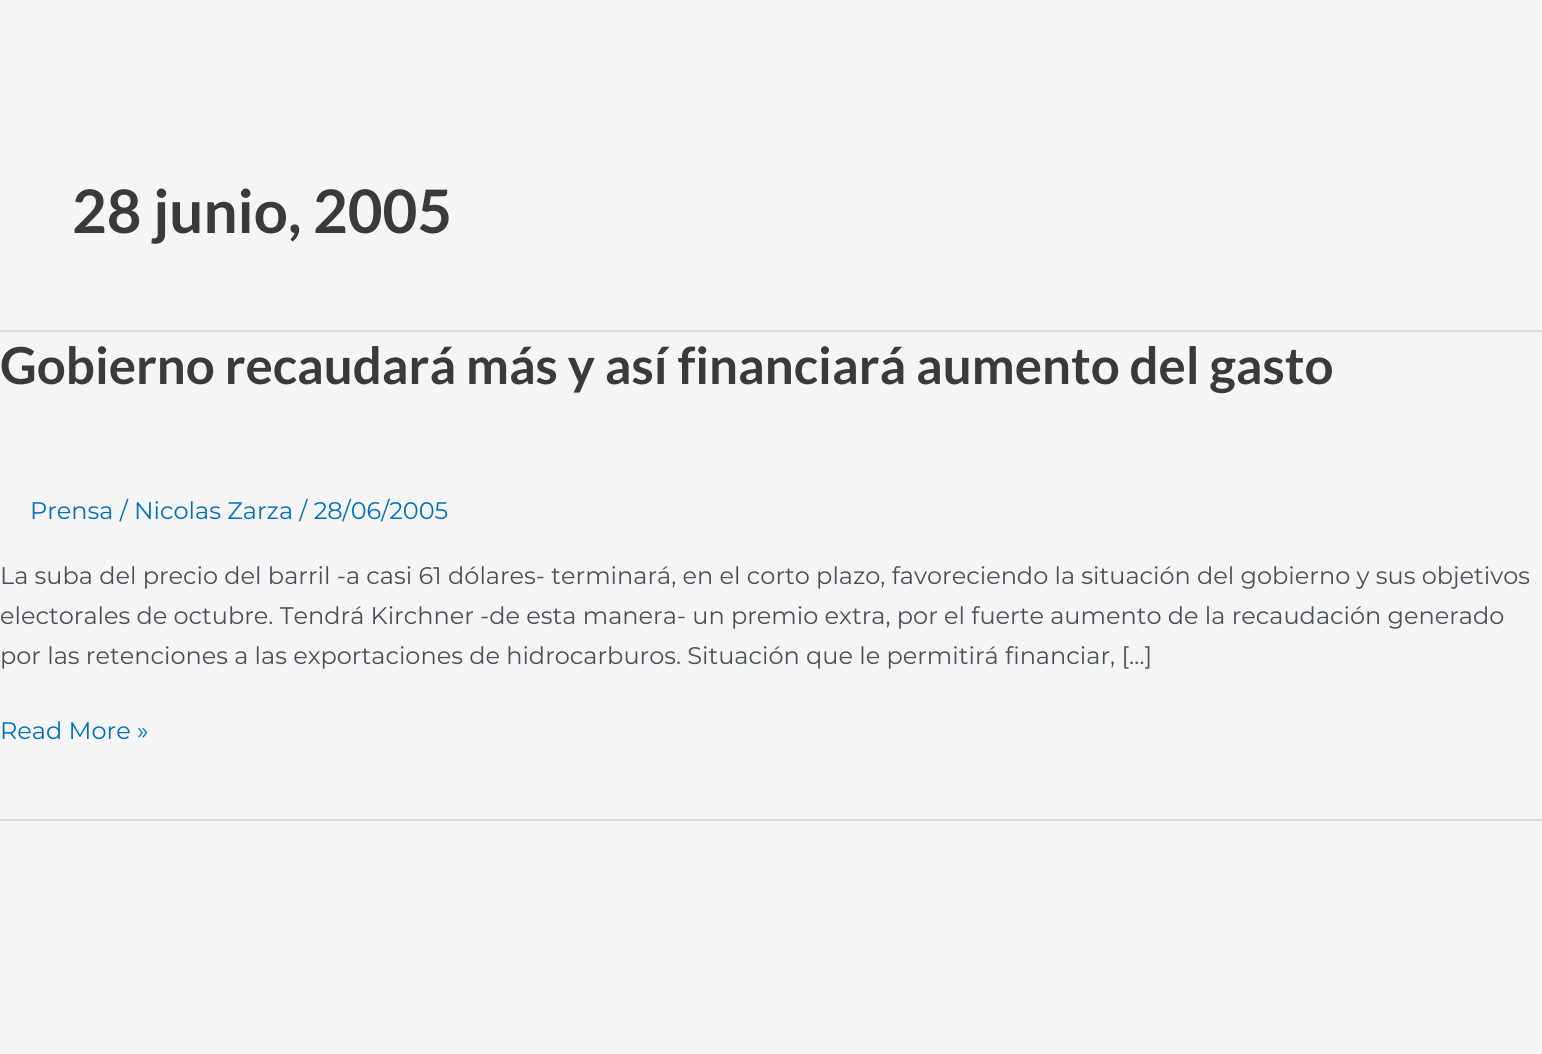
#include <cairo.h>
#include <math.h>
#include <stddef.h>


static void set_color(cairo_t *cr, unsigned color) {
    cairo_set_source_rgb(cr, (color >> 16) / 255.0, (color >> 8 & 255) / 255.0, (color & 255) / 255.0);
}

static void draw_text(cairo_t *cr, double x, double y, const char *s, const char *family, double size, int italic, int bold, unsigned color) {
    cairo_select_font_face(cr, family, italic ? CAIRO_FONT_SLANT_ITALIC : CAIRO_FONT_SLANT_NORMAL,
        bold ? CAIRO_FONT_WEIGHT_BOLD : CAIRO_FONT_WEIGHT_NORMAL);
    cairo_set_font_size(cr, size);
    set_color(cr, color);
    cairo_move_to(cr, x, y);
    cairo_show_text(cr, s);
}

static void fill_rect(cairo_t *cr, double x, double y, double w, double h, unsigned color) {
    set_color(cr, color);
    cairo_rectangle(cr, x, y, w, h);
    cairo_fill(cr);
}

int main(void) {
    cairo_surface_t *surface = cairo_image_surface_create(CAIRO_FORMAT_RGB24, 1542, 1054);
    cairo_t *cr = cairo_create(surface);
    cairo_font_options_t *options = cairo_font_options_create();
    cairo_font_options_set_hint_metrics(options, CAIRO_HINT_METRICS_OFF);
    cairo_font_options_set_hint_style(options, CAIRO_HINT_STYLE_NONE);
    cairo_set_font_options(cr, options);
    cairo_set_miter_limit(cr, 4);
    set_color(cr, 0xF5F5F5);
    cairo_paint(cr);
    fill_rect(cr, 0, 330, 1542, 2, 0xDDDDDD);
    draw_text(cr, 72, 233, "28 junio, 2005", "Lato", 60, 0, 1, 0x3A3A3A);
    fill_rect(cr, 0, 819, 1542, 2, 0xDDDDDD);
    draw_text(cr, 0, 384, "Gobierno recaudará más y así financiará aumento del gasto", "Lato", 51, 0, 1, 0x3A3A3A);
    draw_text(cr, 30, 519, "Prensa / Nicolas Zarza / 28/06/2005", "Montserrat", 24, 0, 0, 0x0170B9);
    draw_text(cr, 0, 584, "La suba del precio del barril -a casi 61 dólares- terminará, en el corto plazo, favoreciendo la situación del gobierno y sus objetivos", "Montserrat", 24, 0, 0, 0x4B4F58);
    draw_text(cr, 0, 624, "electorales de octubre. Tendrá Kirchner -de esta manera- un premio extra, por el fuerte aumento de la recaudación generado", "Montserrat", 24, 0, 0, 0x4B4F58);
    draw_text(cr, 0, 664, "por las retenciones a las exportaciones de hidrocarburos. Situación que le permitirá financiar, […]", "Montserrat", 24, 0, 0, 0x4B4F58);
    draw_text(cr, 0, 739, "Read More »", "Montserrat", 24, 0, 0, 0x0170B9);
    cairo_surface_write_to_png(surface, "output.png");
    cairo_font_options_destroy(options);
    cairo_destroy(cr);
    cairo_surface_destroy(surface);
    return 0;
}
